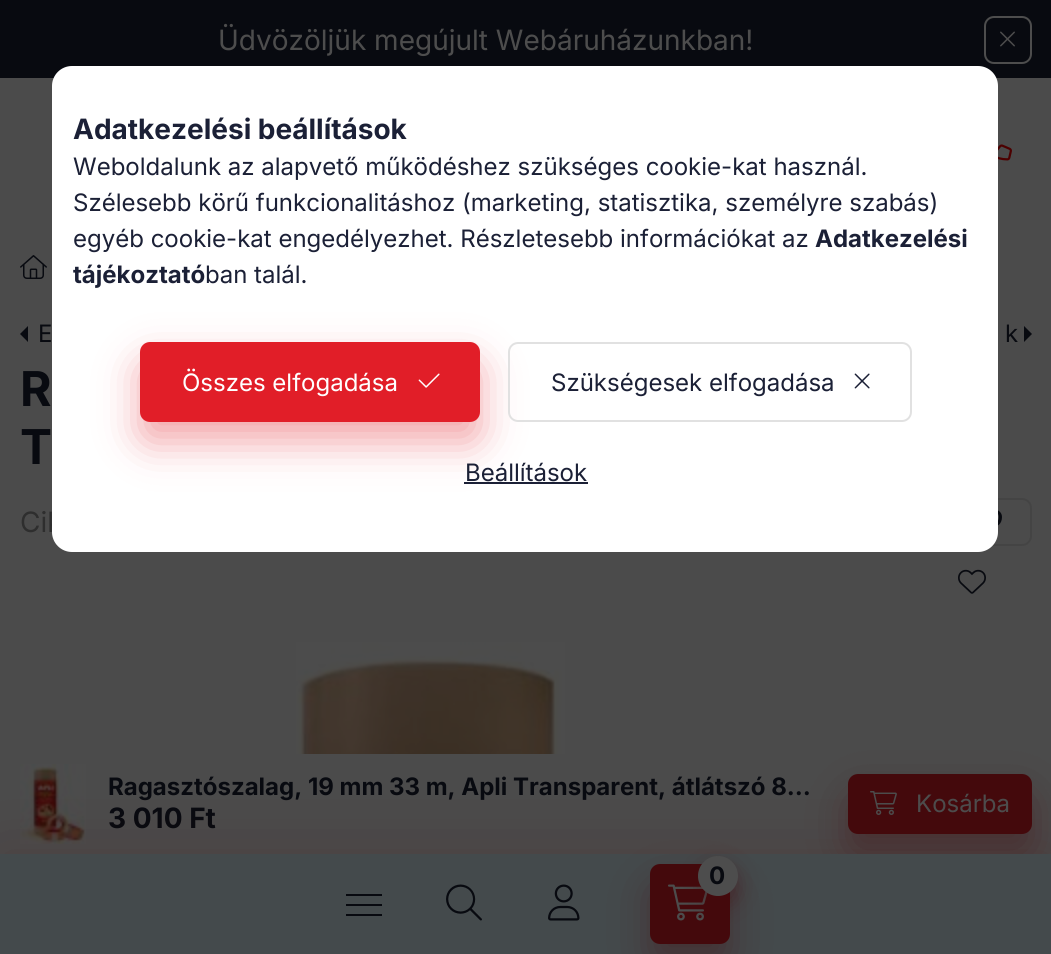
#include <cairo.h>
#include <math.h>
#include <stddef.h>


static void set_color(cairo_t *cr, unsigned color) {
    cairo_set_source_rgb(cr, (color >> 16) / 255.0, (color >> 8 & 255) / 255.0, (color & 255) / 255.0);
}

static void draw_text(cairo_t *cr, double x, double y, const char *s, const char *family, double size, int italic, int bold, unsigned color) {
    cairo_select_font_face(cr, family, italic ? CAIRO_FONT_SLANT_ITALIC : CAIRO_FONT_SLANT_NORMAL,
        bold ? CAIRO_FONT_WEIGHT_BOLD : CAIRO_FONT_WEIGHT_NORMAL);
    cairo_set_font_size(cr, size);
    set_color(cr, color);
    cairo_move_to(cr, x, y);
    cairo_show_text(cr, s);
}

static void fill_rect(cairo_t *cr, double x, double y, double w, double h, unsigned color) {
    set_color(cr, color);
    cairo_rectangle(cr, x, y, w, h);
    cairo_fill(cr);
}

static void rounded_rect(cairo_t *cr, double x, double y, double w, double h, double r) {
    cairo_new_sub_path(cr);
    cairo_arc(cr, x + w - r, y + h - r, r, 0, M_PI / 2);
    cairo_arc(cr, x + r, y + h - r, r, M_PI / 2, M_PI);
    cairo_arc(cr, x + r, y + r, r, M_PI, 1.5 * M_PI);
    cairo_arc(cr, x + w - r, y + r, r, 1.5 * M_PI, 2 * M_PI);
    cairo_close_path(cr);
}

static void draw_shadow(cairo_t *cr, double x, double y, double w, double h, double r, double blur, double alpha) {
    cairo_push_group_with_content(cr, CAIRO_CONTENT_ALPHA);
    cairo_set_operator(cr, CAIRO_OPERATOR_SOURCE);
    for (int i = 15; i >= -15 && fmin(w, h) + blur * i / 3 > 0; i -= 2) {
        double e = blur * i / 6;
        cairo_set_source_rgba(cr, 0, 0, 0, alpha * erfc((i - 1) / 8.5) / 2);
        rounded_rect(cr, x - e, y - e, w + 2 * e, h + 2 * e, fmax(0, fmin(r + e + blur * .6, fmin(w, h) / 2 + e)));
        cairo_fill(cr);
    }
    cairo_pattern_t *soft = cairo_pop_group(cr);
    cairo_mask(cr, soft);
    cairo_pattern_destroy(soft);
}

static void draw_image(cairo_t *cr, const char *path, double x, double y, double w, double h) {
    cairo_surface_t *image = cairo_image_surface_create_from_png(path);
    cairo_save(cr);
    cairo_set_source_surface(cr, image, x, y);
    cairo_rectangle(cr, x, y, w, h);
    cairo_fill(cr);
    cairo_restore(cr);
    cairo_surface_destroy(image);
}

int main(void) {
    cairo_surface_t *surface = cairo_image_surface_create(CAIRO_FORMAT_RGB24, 1051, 954);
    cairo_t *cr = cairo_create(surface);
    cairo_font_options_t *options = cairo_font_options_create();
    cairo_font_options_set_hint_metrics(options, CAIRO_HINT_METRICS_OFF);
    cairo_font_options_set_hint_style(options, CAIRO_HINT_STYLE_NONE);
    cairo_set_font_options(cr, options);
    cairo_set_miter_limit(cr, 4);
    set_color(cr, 0x4B4B4B);
    cairo_paint(cr);
    fill_rect(cr, 0, 0, 1051, 78, 0x080A10);
    draw_text(cr, 218, 50, "Üdvözöljük megújult Webáruházunkban!", "Inter", 28, 0, 0, 0x4D4D4D);
    rounded_rect(cr, 985, 17, 46, 46, 9);
    cairo_stroke(cr);
    draw_image(cr, "assets/img1.png", 1000, 31, 15, 16);
    draw_image(cr, "assets/img2.png", 998, 144, 14, 17);
    draw_image(cr, "assets/img3.png", 20, 255, 27, 24);
    set_color(cr, 0x080A10);
    cairo_new_path(cr);
    cairo_move_to(cr, 28, 342);
    cairo_line_to(cr, 28, 326);
    cairo_line_to(cr, 20, 334);
    cairo_close_path(cr);
    cairo_fill(cr);
    draw_text(cr, 38, 342, "E", "Inter", 24, 0, 0, 0x080A10);
    draw_text(cr, 1005, 342, "k", "Inter", 24, 0, 0, 0x080A10);
    cairo_new_path(cr);
    cairo_move_to(cr, 1024, 342);
    cairo_line_to(cr, 1024, 326);
    cairo_line_to(cr, 1032, 334);
    cairo_close_path(cr);
    cairo_fill(cr);
    draw_text(cr, 20, 406, "R", "Inter", 48, 0, 1, 0x080A10);
    draw_text(cr, 20, 464, "T", "Inter", 48, 0, 1, 0x080A10);
    draw_text(cr, 20, 532, "Cik", "Inter", 28, 0, 0, 0x2E2E2E);
    rounded_rect(cr, 953, 499, 78, 46, 9);
    set_color(cr, 0x444444);
    cairo_stroke(cr);
    draw_image(cr, "assets/img4.png", 998, 510, 4, 16);
    draw_image(cr, "assets/img5.png", 958, 569, 28, 25);
    draw_image(cr, "assets/img6.png", 296, 642, 269, 112);
    draw_image(cr, "assets/img7.png", 20, 764, 66, 80);
    draw_text(cr, 108, 795, "Ragasztószalag, 19 mm 33 m, Apli Transparent, átlátszó 8…", "Inter", 24, 0, 1, 0x080A10);
    draw_text(cr, 108, 828, "3 010 Ft", "Inter", 28, 0, 1, 0x080A10);
    set_color(cr, 0x44090C);
    draw_shadow(cr, 848, 794, 184, 60, 10, 20, 0.4);
    set_color(cr, 0x44090C);
    rounded_rect(cr, 848, 774, 184, 60, 10);
    cairo_fill(cr);
    draw_image(cr, "assets/img8.png", 870, 791, 27, 24);
    draw_text(cr, 916, 812, "Kosárba", "Inter", 24, 0, 0, 0x4D4D4D);
    set_color(cr, 0x44090C);
    draw_shadow(cr, 0, 854, 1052, 100, 0, 30, 0.2);
    fill_rect(cr, 0, 854, 1051, 100, 0x444A4C);
    set_color(cr, 0x44090C);
    draw_shadow(cr, 650, 884, 80, 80, 10, 20, 0.4);
    set_color(cr, 0x44090C);
    rounded_rect(cr, 650, 864, 80, 80, 10);
    cairo_fill(cr);
    draw_image(cr, "assets/img9.png", 668, 884, 40, 37);
    set_color(cr, 0x44090C);
    draw_shadow(cr, 698, 866, 40, 40, 20, 10, 0.4);
    set_color(cr, 0x4D4D4D);
    cairo_arc(cr, 718, 876, 20, 0, 2 * M_PI);
    cairo_fill(cr);
    draw_text(cr, 709, 884, "0", "Inter", 24, 0, 1, 0x080A10);
    fill_rect(cr, 346, 894, 36, 2, 0x080A10);
    fill_rect(cr, 346, 904, 36, 2, 0x080A10);
    fill_rect(cr, 346, 914, 36, 2, 0x080A10);
    draw_image(cr, "assets/img10.png", 446, 884, 36, 37);
    draw_image(cr, "assets/img11.png", 548, 884, 32, 37);
    set_color(cr, 0xFFFFFF);
    rounded_rect(cr, 52, 66, 946, 486, 20);
    cairo_fill(cr);
    draw_text(cr, 73, 139, "Adatkezelési beállítások", "Inter", 28, 0, 1, 0x1B2036);
    draw_text(cr, 73, 175, "Weboldalunk az alapvető működéshez szükséges cookie-kat használ.", "Inter", 24, 0, 0, 0x1B2036);
    draw_text(cr, 73, 211, "Szélesebb körű funkcionalitáshoz (marketing, statisztika, személyre szabás)", "Inter", 24, 0, 0, 0x1B2036);
    draw_text(cr, 73, 247, "egyéb cookie-kat engedélyezhet. Részletesebb információkat az", "Inter", 24, 0, 0, 0x1B2036);
    draw_text(cr, 815, 247, "Adatkezelési", "Inter", 24, 0, 1, 0x1B2036);
    draw_text(cr, 73, 283, "tájékoztató", "Inter", 24, 0, 1, 0x1B2036);
    draw_text(cr, 205, 283, "ban talál.", "Inter", 24, 0, 0, 0x1B2036);
    set_color(cr, 0xE11E28);
    draw_shadow(cr, 140, 362, 340, 80, 10, 20, 0.4);
    set_color(cr, 0xE11E28);
    rounded_rect(cr, 141, 343, 338, 78, 9);
    cairo_fill_preserve(cr);
    cairo_stroke(cr);
    draw_text(cr, 182, 391, "Összes elfogadása", "Inter", 24, 0, 0, 0xFFFFFF);
    draw_image(cr, "assets/img12.png", 418, 373, 22, 15);
    rounded_rect(cr, 509, 343, 402, 78, 9);
    set_color(cr, 0xE1E1E1);
    cairo_stroke(cr);
    draw_text(cr, 551, 391, "Szükségesek elfogadása", "Inter", 24, 0, 0, 0x1B2036);
    draw_image(cr, "assets/img13.png", 854, 373, 16, 16);
    draw_text(cr, 465, 481, "Beállítások", "Inter", 24, 0, 0, 0x1B2036);
    fill_rect(cr, 464, 482, 124, 2, 0x1B2036);
    cairo_surface_write_to_png(surface, "output.png");
    cairo_font_options_destroy(options);
    cairo_destroy(cr);
    cairo_surface_destroy(surface);
    return 0;
}
